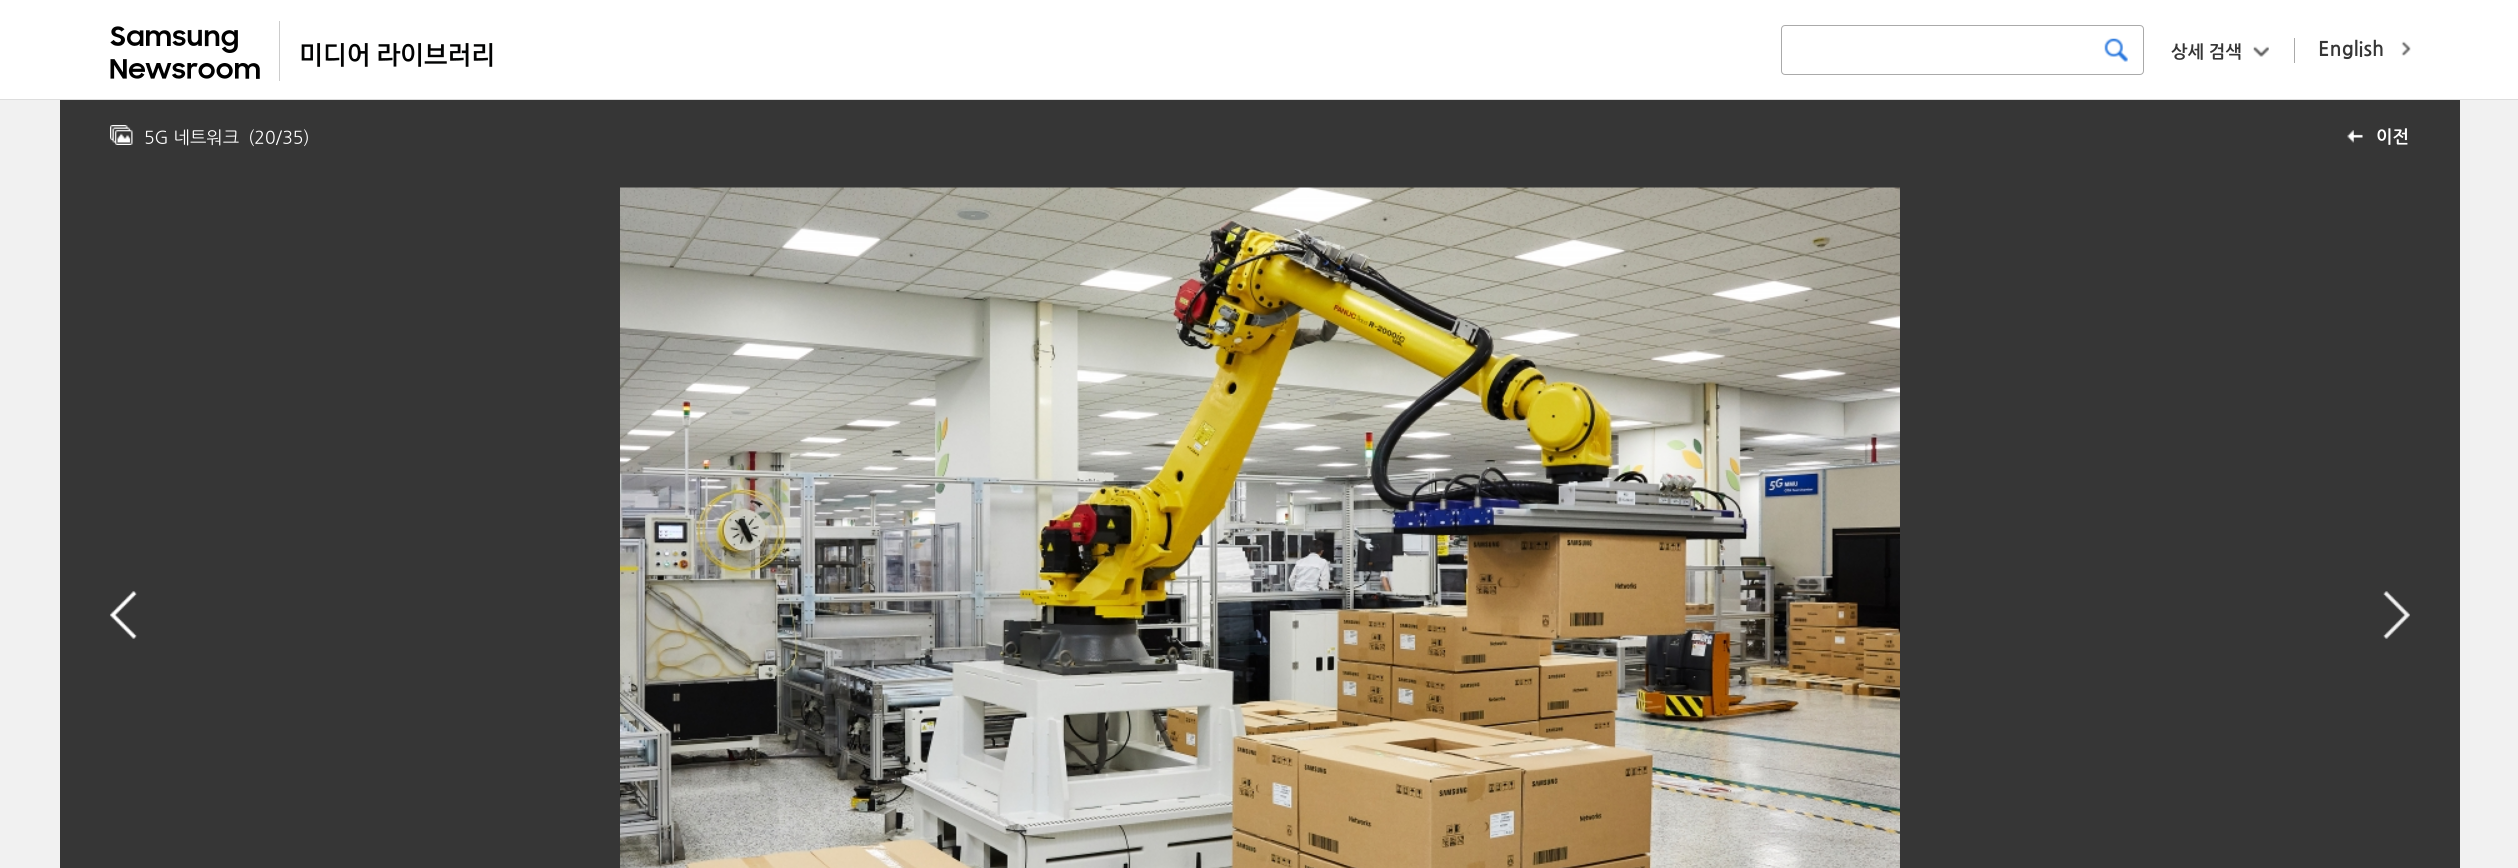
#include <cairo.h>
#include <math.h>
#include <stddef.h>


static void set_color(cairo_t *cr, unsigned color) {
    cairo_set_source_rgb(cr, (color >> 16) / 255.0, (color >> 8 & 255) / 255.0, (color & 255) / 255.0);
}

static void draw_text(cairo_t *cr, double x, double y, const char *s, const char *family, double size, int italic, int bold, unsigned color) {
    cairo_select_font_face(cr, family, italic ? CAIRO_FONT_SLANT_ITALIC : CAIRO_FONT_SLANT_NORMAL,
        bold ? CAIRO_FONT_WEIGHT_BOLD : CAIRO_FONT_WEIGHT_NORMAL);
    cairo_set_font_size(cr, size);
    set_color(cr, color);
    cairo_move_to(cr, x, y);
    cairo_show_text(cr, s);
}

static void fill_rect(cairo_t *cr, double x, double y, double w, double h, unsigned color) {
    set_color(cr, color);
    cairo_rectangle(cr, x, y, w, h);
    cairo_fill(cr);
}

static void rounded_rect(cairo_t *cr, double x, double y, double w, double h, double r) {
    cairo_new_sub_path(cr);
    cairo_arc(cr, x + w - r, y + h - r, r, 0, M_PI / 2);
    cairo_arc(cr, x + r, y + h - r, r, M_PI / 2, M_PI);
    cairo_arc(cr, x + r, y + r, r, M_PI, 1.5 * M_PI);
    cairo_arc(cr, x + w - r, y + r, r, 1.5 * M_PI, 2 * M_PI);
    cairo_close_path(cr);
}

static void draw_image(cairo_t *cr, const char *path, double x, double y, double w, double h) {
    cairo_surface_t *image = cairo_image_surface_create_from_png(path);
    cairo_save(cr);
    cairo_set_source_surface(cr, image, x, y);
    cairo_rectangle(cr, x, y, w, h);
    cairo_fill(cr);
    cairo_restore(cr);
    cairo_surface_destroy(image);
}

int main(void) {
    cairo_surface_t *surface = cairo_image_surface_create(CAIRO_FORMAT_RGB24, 2518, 868);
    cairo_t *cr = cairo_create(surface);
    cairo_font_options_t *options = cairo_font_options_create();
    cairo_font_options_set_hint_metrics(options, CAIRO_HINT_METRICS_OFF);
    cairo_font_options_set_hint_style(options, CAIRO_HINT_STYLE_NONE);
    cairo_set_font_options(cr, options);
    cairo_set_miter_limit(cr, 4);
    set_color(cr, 0xF1F1F1);
    cairo_paint(cr);
    fill_rect(cr, 0, 0, 2518, 99, 0xFFFFFF);
    fill_rect(cr, 0, 99, 2518, 1, 0xDDDDDD);
    fill_rect(cr, 279, 21, 1, 60, 0xCCCCCC);
    draw_image(cr, "assets/img1.png", 110, 26, 150, 53);
    draw_image(cr, "assets/img2.png", 301, 43, 192, 24);
    rounded_rect(cr, 1781.5, 25.5, 362, 49, 3.5);
    set_color(cr, 0xAAAAAA);
    cairo_set_line_width(cr, 1);
    cairo_stroke(cr);
    draw_image(cr, "assets/img3.png", 2104, 38, 24, 24);
    draw_text(cr, 2171, 58, "상세 검색", "NanumGothic", 17.5, 0, 1, 0x363636);
    draw_image(cr, "assets/img4.png", 2253, 46, 16, 11);
    fill_rect(cr, 2294, 38, 1, 25, 0xAAAAAA);
    draw_text(cr, 2318, 56, "English", "NanumGothic", 20, 0, 1, 0x363636);
    draw_image(cr, "assets/img5.png", 2401, 41, 10, 15);
    fill_rect(cr, 60, 100, 2400, 768, 0x363636);
    draw_image(cr, "assets/img6.png", 110, 125, 23, 20);
    draw_text(cr, 144, 143, "5G 네트워크", "NanumGothic", 17.5, 0, 0, 0xFFFFFF);
    draw_text(cr, 248, 143, "(20/35)", "NanumGothic", 17.5, 0, 0, 0xFFFFFF);
    draw_image(cr, "assets/img7.png", 2347, 130, 16, 13);
    draw_text(cr, 2376, 143, "이전", "NanumGothic", 17.5, 0, 1, 0xFFFFFF);
    draw_image(cr, "assets/img8.png", 620, 187, 1280, 681);
    draw_image(cr, "assets/img9.png", 110, 591, 27, 48);
    draw_image(cr, "assets/img10.png", 2383, 591, 27, 48);
    cairo_surface_write_to_png(surface, "output.png");
    cairo_font_options_destroy(options);
    cairo_destroy(cr);
    cairo_surface_destroy(surface);
    return 0;
}
